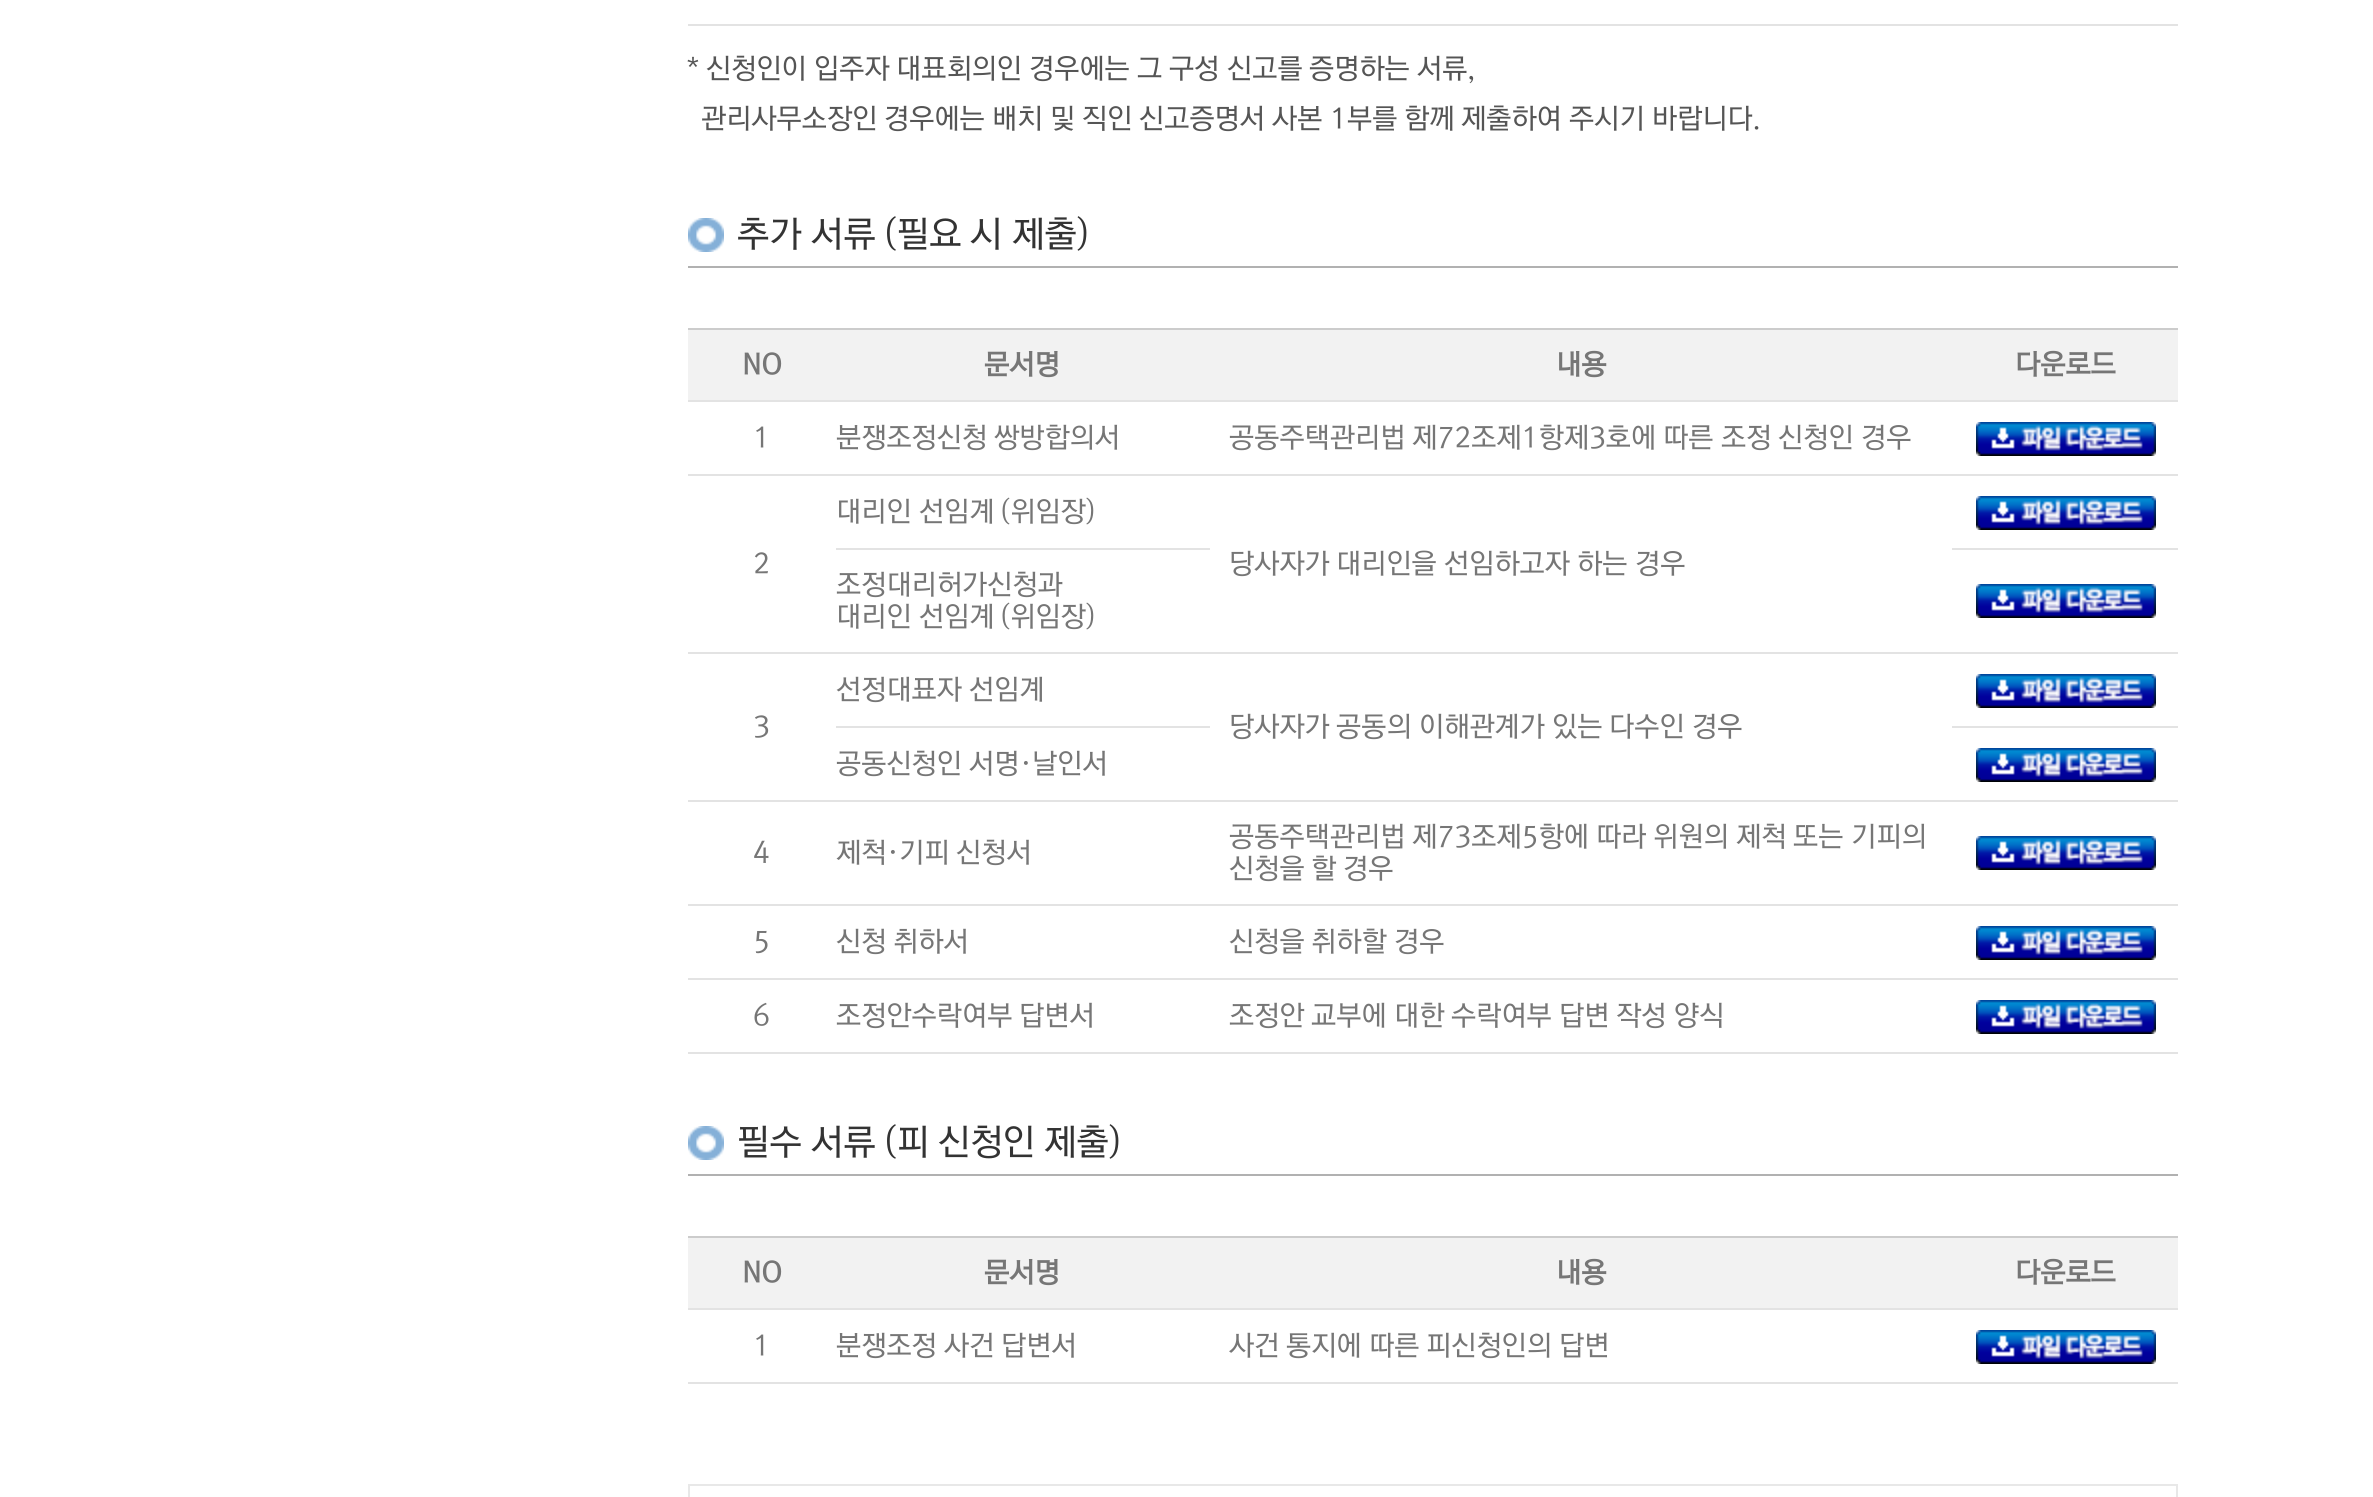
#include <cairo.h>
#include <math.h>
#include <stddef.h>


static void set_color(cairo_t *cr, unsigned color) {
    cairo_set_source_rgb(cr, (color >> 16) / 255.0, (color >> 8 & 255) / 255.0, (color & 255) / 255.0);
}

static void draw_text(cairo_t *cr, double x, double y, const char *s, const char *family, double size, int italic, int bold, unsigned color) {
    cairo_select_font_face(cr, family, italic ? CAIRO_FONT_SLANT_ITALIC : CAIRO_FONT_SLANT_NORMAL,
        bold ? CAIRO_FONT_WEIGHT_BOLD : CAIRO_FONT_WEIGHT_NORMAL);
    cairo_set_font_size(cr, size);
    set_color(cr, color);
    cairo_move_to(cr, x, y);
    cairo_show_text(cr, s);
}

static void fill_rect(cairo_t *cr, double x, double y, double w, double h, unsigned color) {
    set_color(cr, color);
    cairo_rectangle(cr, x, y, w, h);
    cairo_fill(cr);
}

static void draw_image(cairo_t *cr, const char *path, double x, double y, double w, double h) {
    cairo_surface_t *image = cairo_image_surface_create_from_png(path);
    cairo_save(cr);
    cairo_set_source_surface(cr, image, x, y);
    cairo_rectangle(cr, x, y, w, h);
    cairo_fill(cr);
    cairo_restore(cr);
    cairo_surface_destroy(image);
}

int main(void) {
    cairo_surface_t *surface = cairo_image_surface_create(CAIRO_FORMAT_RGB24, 2373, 1497);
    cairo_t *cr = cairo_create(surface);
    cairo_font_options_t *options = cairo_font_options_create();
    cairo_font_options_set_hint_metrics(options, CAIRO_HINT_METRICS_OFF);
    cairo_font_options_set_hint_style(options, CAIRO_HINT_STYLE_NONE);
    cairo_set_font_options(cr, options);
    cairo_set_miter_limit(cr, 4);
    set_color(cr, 0xFFFFFF);
    cairo_paint(cr);
    fill_rect(cr, 688, 24, 1490, 2, 0xE3E3E3);
    draw_text(cr, 687, 77, "*", "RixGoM", 28, 0, 0, 0x555555);
    draw_text(cr, 706, 77, "신청인이", "RixGoM", 28, 0, 0, 0x555555);
    draw_text(cr, 814, 77, "입주자", "RixGoM", 28, 0, 0, 0x555555);
    draw_text(cr, 896, 77, "대표회의인", "RixGoM", 28, 0, 0, 0x555555);
    draw_text(cr, 1029, 77, "경우에는", "RixGoM", 28, 0, 0, 0x555555);
    draw_text(cr, 1137, 77, "그", "RixGoM", 28, 0, 0, 0x555555);
    draw_text(cr, 1169, 77, "구성", "RixGoM", 28, 0, 0, 0x555555);
    draw_text(cr, 1227, 77, "신고를", "RixGoM", 28, 0, 0, 0x555555);
    draw_text(cr, 1309, 77, "증명하는", "RixGoM", 28, 0, 0, 0x555555);
    draw_text(cr, 1417, 77, "서류,", "RixGoM", 28, 0, 0, 0x555555);
    draw_text(cr, 701, 127, "관리사무소장인", "RixGoM", 28, 0, 0, 0x555555);
    draw_text(cr, 884, 127, "경우에는", "RixGoM", 28, 0, 0, 0x555555);
    draw_text(cr, 992, 127, "배치", "RixGoM", 28, 0, 0, 0x555555);
    draw_text(cr, 1050, 127, "및", "RixGoM", 28, 0, 0, 0x555555);
    draw_text(cr, 1082, 127, "직인", "RixGoM", 28, 0, 0, 0x555555);
    draw_text(cr, 1139, 127, "신고증명서", "RixGoM", 28, 0, 0, 0x555555);
    draw_text(cr, 1272, 127, "사본", "RixGoM", 28, 0, 0, 0x555555);
    draw_text(cr, 1330, 127, "1부를", "RixGoM", 28, 0, 0, 0x555555);
    draw_text(cr, 1404, 127, "함께", "RixGoM", 28, 0, 0, 0x555555);
    draw_text(cr, 1461, 127, "제출하여", "RixGoM", 28, 0, 0, 0x555555);
    draw_text(cr, 1569, 127, "주시기", "RixGoM", 28, 0, 0, 0x555555);
    draw_text(cr, 1652, 127, "바랍니다.", "RixGoM", 28, 0, 0, 0x555555);
    draw_image(cr, "assets/img1.png", 688, 218, 36, 34);
    fill_rect(cr, 688, 266, 1490, 2, 0xB1B1B1);
    draw_text(cr, 737, 245, "추가", "RixGoM", 36, 0, 0, 0x333333);
    draw_text(cr, 811, 245, "서류", "RixGoM", 36, 0, 0, 0x333333);
    draw_text(cr, 885, 245, "(필요", "RixGoM", 36, 0, 0, 0x333333);
    draw_text(cr, 970, 245, "시", "RixGoM", 36, 0, 0, 0x333333);
    draw_text(cr, 1012, 245, "제출)", "RixGoM", 36, 0, 0, 0x333333);
    fill_rect(cr, 688, 328, 1490, 2, 0xCCCCCC);
    fill_rect(cr, 688, 330, 1490, 70, 0xF2F2F2);
    draw_text(cr, 742, 373, "NO", "RixGoM", 28, 0, 1, 0x767676);
    draw_text(cr, 984, 373, "문서명", "RixGoM", 28, 0, 1, 0x767676);
    draw_text(cr, 1556, 373, "내용", "RixGoM", 28, 0, 1, 0x767676);
    fill_rect(cr, 688, 400, 1490, 2, 0xE3E3E3);
    draw_text(cr, 2015, 373, "다운로드", "RixGoM", 28, 0, 1, 0x767676);
    fill_rect(cr, 688, 474, 1490, 2, 0xE3E3E3);
    draw_image(cr, "assets/img2.png", 1976, 422, 180, 34);
    draw_text(cr, 753, 446, "1", "RixGoM", 28, 0, 0, 0x767676);
    draw_text(cr, 836, 446, "분쟁조정신청", "RixGoM", 28, 0, 0, 0x767676);
    draw_text(cr, 994, 446, "쌍방합의서", "RixGoM", 28, 0, 0, 0x767676);
    draw_text(cr, 1229, 446, "공동주택관리법", "RixGoM", 28, 0, 0, 0x767676);
    draw_text(cr, 1412, 446, "제72조제1항제3호에", "RixGoM", 28, 0, 0, 0x767676);
    draw_text(cr, 1663, 446, "따른", "RixGoM", 28, 0, 0, 0x767676);
    draw_text(cr, 1721, 446, "조정", "RixGoM", 28, 0, 0, 0x767676);
    draw_text(cr, 1778, 446, "신청인", "RixGoM", 28, 0, 0, 0x767676);
    draw_text(cr, 1861, 446, "경우", "RixGoM", 28, 0, 0, 0x767676);
    fill_rect(cr, 836, 548, 374, 2, 0xE3E3E3);
    draw_text(cr, 836, 520, "대리인", "RixGoM", 28, 0, 0, 0x767676);
    draw_text(cr, 919, 520, "선임계", "RixGoM", 28, 0, 0, 0x767676);
    draw_text(cr, 1001, 520, "(위임장)", "RixGoM", 28, 0, 0, 0x767676);
    fill_rect(cr, 1952, 548, 226, 2, 0xE3E3E3);
    draw_image(cr, "assets/img2.png", 1976, 496, 180, 34);
    draw_text(cr, 753, 572, "2", "RixGoM", 28, 0, 0, 0x767676);
    draw_text(cr, 1229, 572, "당사자가", "RixGoM", 28, 0, 0, 0x767676);
    draw_text(cr, 1336, 572, "대리인을", "RixGoM", 28, 0, 0, 0x767676);
    draw_text(cr, 1444, 572, "선임하고자", "RixGoM", 28, 0, 0, 0x767676);
    draw_text(cr, 1577, 572, "하는", "RixGoM", 28, 0, 0, 0x767676);
    draw_text(cr, 1635, 572, "경우", "RixGoM", 28, 0, 0, 0x767676);
    fill_rect(cr, 1952, 652, 226, 2, 0xE3E3E3);
    fill_rect(cr, 688, 652, 1266, 2, 0xE3E3E3);
    draw_text(cr, 836, 593, "조정대리허가신청과", "RixGoM", 28, 0, 0, 0x767676);
    draw_text(cr, 836, 625, "대리인", "RixGoM", 28, 0, 0, 0x767676);
    draw_text(cr, 919, 625, "선임계", "RixGoM", 28, 0, 0, 0x767676);
    draw_text(cr, 1001, 625, "(위임장)", "RixGoM", 28, 0, 0, 0x767676);
    draw_image(cr, "assets/img2.png", 1976, 584, 180, 34);
    fill_rect(cr, 836, 726, 374, 2, 0xE3E3E3);
    draw_text(cr, 836, 698, "선정대표자", "RixGoM", 28, 0, 0, 0x767676);
    draw_text(cr, 969, 698, "선임계", "RixGoM", 28, 0, 0, 0x767676);
    fill_rect(cr, 1952, 726, 226, 2, 0xE3E3E3);
    draw_image(cr, "assets/img2.png", 1976, 674, 180, 34);
    draw_text(cr, 753, 735, "3", "RixGoM", 28, 0, 0, 0x767676);
    draw_text(cr, 1229, 735, "당사자가", "RixGoM", 28, 0, 0, 0x767676);
    draw_text(cr, 1336, 735, "공동의", "RixGoM", 28, 0, 0, 0x767676);
    draw_text(cr, 1419, 735, "이해관계가", "RixGoM", 28, 0, 0, 0x767676);
    draw_text(cr, 1552, 735, "있는", "RixGoM", 28, 0, 0, 0x767676);
    draw_text(cr, 1609, 735, "다수인", "RixGoM", 28, 0, 0, 0x767676);
    draw_text(cr, 1692, 735, "경우", "RixGoM", 28, 0, 0, 0x767676);
    fill_rect(cr, 1952, 800, 226, 2, 0xE3E3E3);
    fill_rect(cr, 688, 800, 1266, 2, 0xE3E3E3);
    draw_text(cr, 836, 772, "공동신청인", "RixGoM", 28, 0, 0, 0x767676);
    draw_text(cr, 969, 772, "서명·날인서", "RixGoM", 28, 0, 0, 0x767676);
    draw_image(cr, "assets/img2.png", 1976, 748, 180, 34);
    draw_text(cr, 1229, 845, "공동주택관리법", "RixGoM", 28, 0, 0, 0x767676);
    draw_text(cr, 1412, 845, "제73조제5항에", "RixGoM", 28, 0, 0, 0x767676);
    draw_text(cr, 1596, 845, "따라", "RixGoM", 28, 0, 0, 0x767676);
    draw_text(cr, 1653, 845, "위원의", "RixGoM", 28, 0, 0, 0x767676);
    draw_text(cr, 1736, 845, "제척", "RixGoM", 28, 0, 0, 0x767676);
    draw_text(cr, 1793, 845, "또는", "RixGoM", 28, 0, 0, 0x767676);
    draw_text(cr, 1851, 845, "기피의", "RixGoM", 28, 0, 0, 0x767676);
    draw_text(cr, 1229, 877, "신청을", "RixGoM", 28, 0, 0, 0x767676);
    draw_text(cr, 1311, 877, "할", "RixGoM", 28, 0, 0, 0x767676);
    draw_text(cr, 1343, 877, "경우", "RixGoM", 28, 0, 0, 0x767676);
    fill_rect(cr, 688, 904, 1490, 2, 0xE3E3E3);
    draw_image(cr, "assets/img2.png", 1976, 836, 180, 34);
    draw_text(cr, 753, 861, "4", "RixGoM", 28, 0, 0, 0x767676);
    draw_text(cr, 836, 861, "제척·기피", "RixGoM", 28, 0, 0, 0x767676);
    draw_text(cr, 956, 861, "신청서", "RixGoM", 28, 0, 0, 0x767676);
    fill_rect(cr, 688, 978, 1490, 2, 0xE3E3E3);
    draw_image(cr, "assets/img2.png", 1976, 926, 180, 34);
    draw_text(cr, 753, 950, "5", "RixGoM", 28, 0, 0, 0x767676);
    draw_text(cr, 836, 950, "신청", "RixGoM", 28, 0, 0, 0x767676);
    draw_text(cr, 893, 950, "취하서", "RixGoM", 28, 0, 0, 0x767676);
    draw_text(cr, 1229, 950, "신청을", "RixGoM", 28, 0, 0, 0x767676);
    draw_text(cr, 1311, 950, "취하할", "RixGoM", 28, 0, 0, 0x767676);
    draw_text(cr, 1394, 950, "경우", "RixGoM", 28, 0, 0, 0x767676);
    fill_rect(cr, 688, 1052, 1490, 2, 0xE3E3E3);
    draw_image(cr, "assets/img2.png", 1976, 1000, 180, 34);
    draw_text(cr, 753, 1024, "6", "RixGoM", 28, 0, 0, 0x767676);
    draw_text(cr, 836, 1024, "조정안수락여부", "RixGoM", 28, 0, 0, 0x767676);
    draw_text(cr, 1019, 1024, "답변서", "RixGoM", 28, 0, 0, 0x767676);
    draw_text(cr, 1229, 1024, "조정안", "RixGoM", 28, 0, 0, 0x767676);
    draw_text(cr, 1311, 1024, "교부에", "RixGoM", 28, 0, 0, 0x767676);
    draw_text(cr, 1394, 1024, "대한", "RixGoM", 28, 0, 0, 0x767676);
    draw_text(cr, 1451, 1024, "수락여부", "RixGoM", 28, 0, 0, 0x767676);
    draw_text(cr, 1559, 1024, "답변", "RixGoM", 28, 0, 0, 0x767676);
    draw_text(cr, 1616, 1024, "작성", "RixGoM", 28, 0, 0, 0x767676);
    draw_text(cr, 1674, 1024, "양식", "RixGoM", 28, 0, 0, 0x767676);
    draw_image(cr, "assets/img1.png", 688, 1126, 36, 34);
    fill_rect(cr, 688, 1174, 1490, 2, 0xB1B1B1);
    draw_text(cr, 737, 1153, "필수", "RixGoM", 36, 0, 0, 0x333333);
    draw_text(cr, 811, 1153, "서류", "RixGoM", 36, 0, 0, 0x333333);
    draw_text(cr, 885, 1153, "(피", "RixGoM", 36, 0, 0, 0x333333);
    draw_text(cr, 938, 1153, "신청인", "RixGoM", 36, 0, 0, 0x333333);
    draw_text(cr, 1044, 1153, "제출)", "RixGoM", 36, 0, 0, 0x333333);
    fill_rect(cr, 688, 1236, 1490, 2, 0xCCCCCC);
    fill_rect(cr, 688, 1238, 1490, 70, 0xF2F2F2);
    draw_text(cr, 742, 1281, "NO", "RixGoM", 28, 0, 1, 0x767676);
    draw_text(cr, 984, 1281, "문서명", "RixGoM", 28, 0, 1, 0x767676);
    draw_text(cr, 1556, 1281, "내용", "RixGoM", 28, 0, 1, 0x767676);
    fill_rect(cr, 688, 1308, 1490, 2, 0xE3E3E3);
    draw_text(cr, 2015, 1281, "다운로드", "RixGoM", 28, 0, 1, 0x767676);
    fill_rect(cr, 688, 1382, 1490, 2, 0xE3E3E3);
    draw_image(cr, "assets/img2.png", 1976, 1330, 180, 34);
    draw_text(cr, 753, 1354, "1", "RixGoM", 28, 0, 0, 0x767676);
    draw_text(cr, 836, 1354, "분쟁조정", "RixGoM", 28, 0, 0, 0x767676);
    draw_text(cr, 944, 1354, "사건", "RixGoM", 28, 0, 0, 0x767676);
    draw_text(cr, 1001, 1354, "답변서", "RixGoM", 28, 0, 0, 0x767676);
    draw_text(cr, 1229, 1354, "사건", "RixGoM", 28, 0, 0, 0x767676);
    draw_text(cr, 1286, 1354, "통지에", "RixGoM", 28, 0, 0, 0x767676);
    draw_text(cr, 1369, 1354, "따른", "RixGoM", 28, 0, 0, 0x767676);
    draw_text(cr, 1426, 1354, "피신청인의", "RixGoM", 28, 0, 0, 0x767676);
    draw_text(cr, 1559, 1354, "답변", "RixGoM", 28, 0, 0, 0x767676);
    cairo_rectangle(cr, 689, 1485, 1488, 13);
    set_color(cr, 0xE8E8E8);
    cairo_stroke(cr);
    cairo_surface_write_to_png(surface, "output.png");
    cairo_font_options_destroy(options);
    cairo_destroy(cr);
    cairo_surface_destroy(surface);
    return 0;
}
